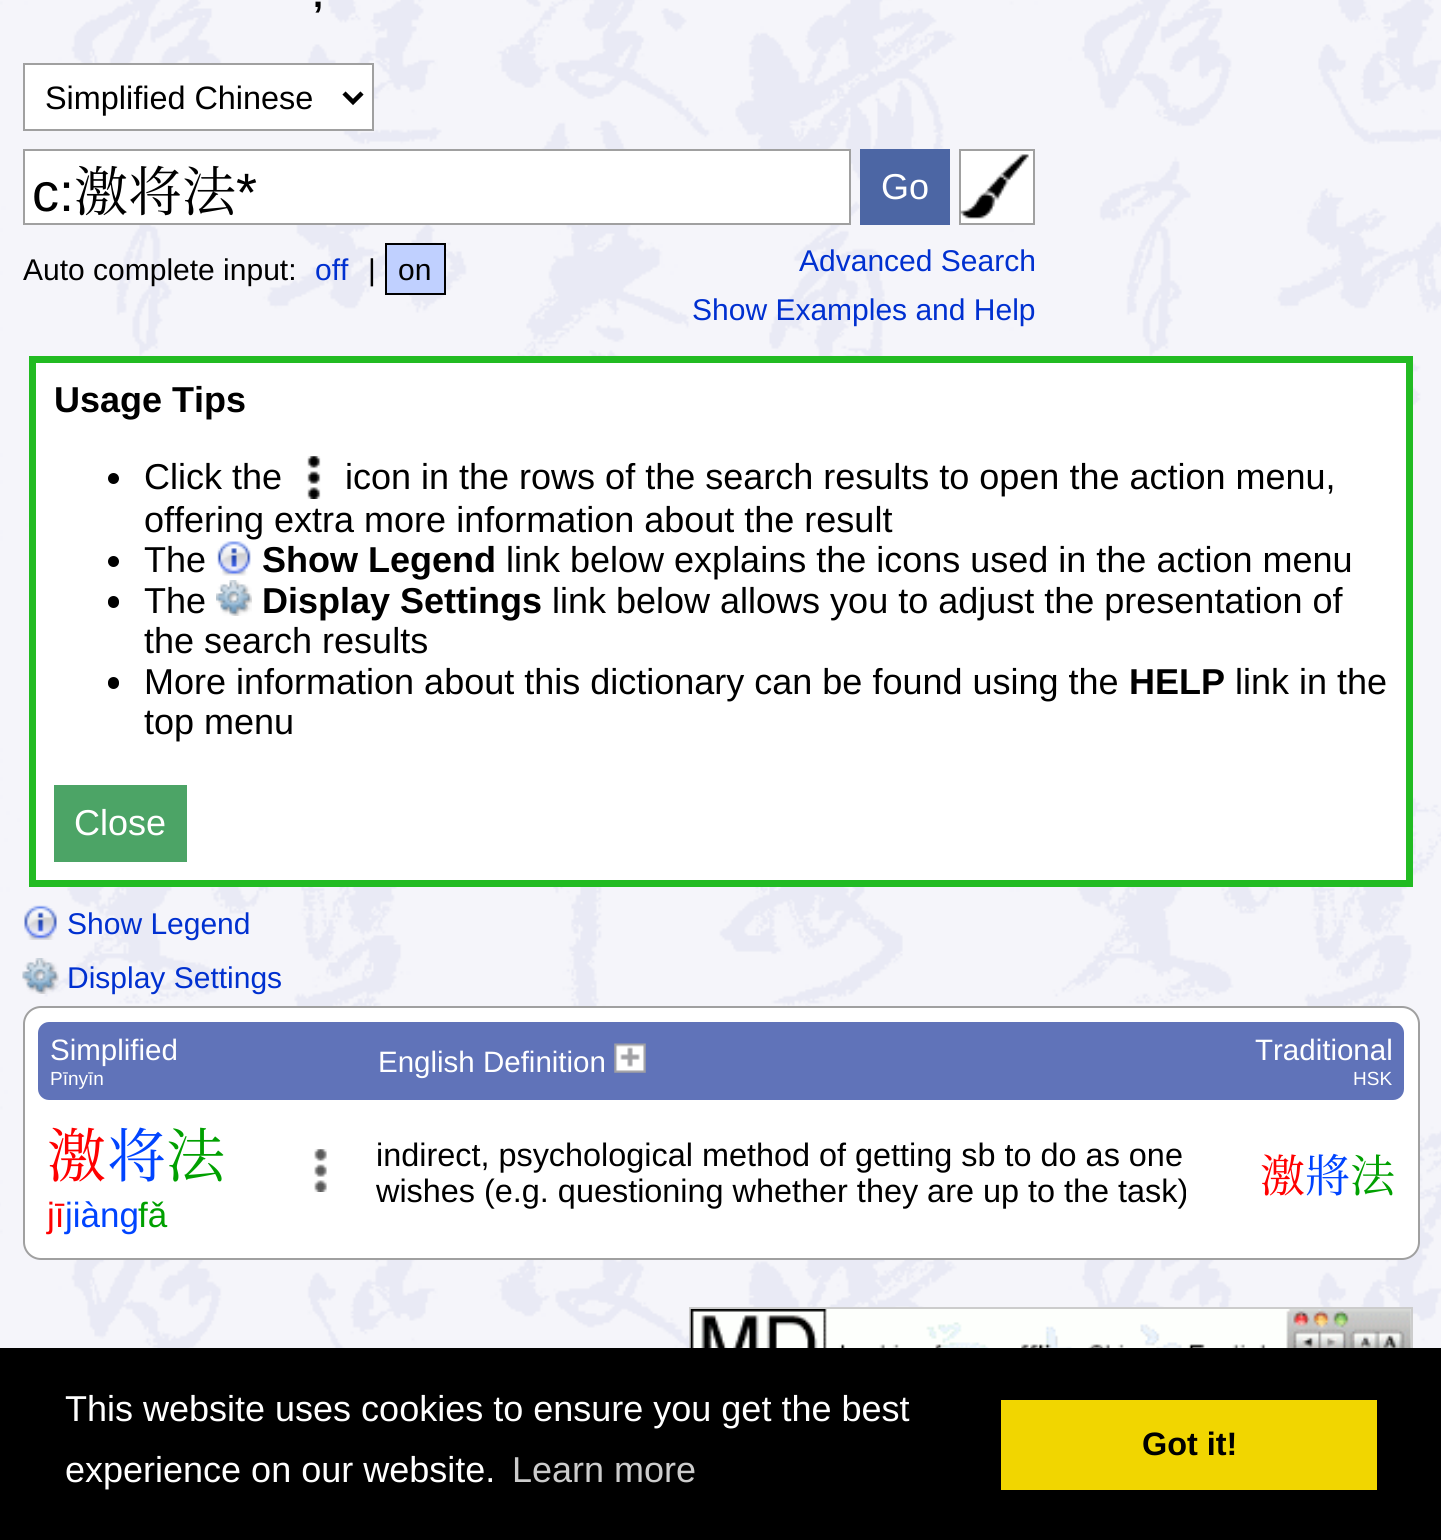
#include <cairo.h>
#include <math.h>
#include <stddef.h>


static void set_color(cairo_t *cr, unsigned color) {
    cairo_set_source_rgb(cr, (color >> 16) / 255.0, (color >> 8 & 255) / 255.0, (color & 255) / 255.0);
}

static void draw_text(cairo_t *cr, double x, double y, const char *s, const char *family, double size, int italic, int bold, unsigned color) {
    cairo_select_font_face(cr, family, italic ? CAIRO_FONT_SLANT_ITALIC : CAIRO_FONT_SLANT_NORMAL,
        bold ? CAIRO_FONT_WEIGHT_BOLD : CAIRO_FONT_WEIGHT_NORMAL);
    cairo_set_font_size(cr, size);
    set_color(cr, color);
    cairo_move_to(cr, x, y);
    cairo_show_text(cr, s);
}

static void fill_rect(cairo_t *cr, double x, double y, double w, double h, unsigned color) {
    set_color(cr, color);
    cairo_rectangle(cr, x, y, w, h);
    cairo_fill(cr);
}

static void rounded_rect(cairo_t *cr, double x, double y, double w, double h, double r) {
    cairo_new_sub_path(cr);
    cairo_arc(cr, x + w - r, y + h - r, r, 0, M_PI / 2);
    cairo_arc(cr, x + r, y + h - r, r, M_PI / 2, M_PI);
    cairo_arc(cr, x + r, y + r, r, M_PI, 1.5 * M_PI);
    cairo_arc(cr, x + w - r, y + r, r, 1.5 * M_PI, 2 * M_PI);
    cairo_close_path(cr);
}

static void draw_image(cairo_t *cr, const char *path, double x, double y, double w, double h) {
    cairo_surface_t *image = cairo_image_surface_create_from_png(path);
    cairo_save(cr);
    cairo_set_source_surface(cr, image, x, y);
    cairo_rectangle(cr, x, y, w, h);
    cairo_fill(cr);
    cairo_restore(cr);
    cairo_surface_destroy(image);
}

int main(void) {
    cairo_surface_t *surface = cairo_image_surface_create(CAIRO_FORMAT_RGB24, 1441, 1540);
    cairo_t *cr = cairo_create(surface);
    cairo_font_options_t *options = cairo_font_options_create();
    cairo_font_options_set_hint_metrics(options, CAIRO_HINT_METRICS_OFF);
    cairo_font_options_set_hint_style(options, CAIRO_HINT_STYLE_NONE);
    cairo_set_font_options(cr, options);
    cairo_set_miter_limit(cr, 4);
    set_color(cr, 0xFFFFFF);
    cairo_paint(cr);
    draw_image(cr, "assets/img1.png", 0, 0, 1441, 1348);
    draw_text(cr, 313, 7, ",", "Liberation Sans", 36, 0, 1, 0x000000);
    set_color(cr, 0xFFFFFF);
    cairo_rectangle(cr, 24, 64, 349, 66);
    cairo_fill_preserve(cr);
    set_color(cr, 0xA0A0A0);
    cairo_stroke(cr);
    cairo_new_path(cr);
    cairo_move_to(cr, 344, 93);
    cairo_line_to(cr, 353, 102);
    cairo_line_to(cr, 362, 93);
    set_color(cr, 0x000000);
    cairo_set_line_width(cr, 4.5);
    cairo_stroke(cr);
    draw_text(cr, 45, 109, "Simplified Chinese", "Liberation Sans", 32.4, 0, 0, 0x000000);
    set_color(cr, 0xFFFFFF);
    cairo_rectangle(cr, 960, 150, 74, 74);
    cairo_fill_preserve(cr);
    set_color(cr, 0xA0A0A0);
    cairo_set_line_width(cr, 2);
    cairo_stroke(cr);
    set_color(cr, 0xFFFFFF);
    cairo_rectangle(cr, 24, 150, 826, 74);
    cairo_fill_preserve(cr);
    set_color(cr, 0xA0A0A0);
    cairo_stroke(cr);
    draw_text(cr, 32, 211, "c:", "Liberation Sans", 54, 0, 0, 0x000000);
    draw_text(cr, 74, 211, "激将法", "Noto Serif CJK SC", 54, 0, 0, 0x000000);
    draw_text(cr, 236, 211, "*", "Liberation Sans", 54, 0, 0, 0x000000);
    fill_rect(cr, 860, 149, 90, 76, 0x4C66A4);
    draw_text(cr, 881, 199, "Go", "Liberation Sans", 36, 0, 0, 0xFFFFFF);
    draw_image(cr, "assets/img2.png", 960, 154, 69, 65);
    draw_text(cr, 23, 280, "Auto complete input:", "Liberation Sans", 30, 0, 0, 0x000000);
    draw_text(cr, 315, 280, "off", "Liberation Sans", 30, 0, 0, 0x0030D0);
    draw_text(cr, 368, 280, "|", "Liberation Sans", 30, 0, 0, 0x000000);
    set_color(cr, 0xC0D0FF);
    cairo_rectangle(cr, 386, 244, 59, 50);
    cairo_fill_preserve(cr);
    set_color(cr, 0x000000);
    cairo_stroke(cr);
    draw_text(cr, 398, 280, "on", "Liberation Sans", 30, 0, 0, 0x000000);
    draw_text(cr, 799, 271, "Advanced Search", "Liberation Sans", 30, 0, 0, 0x0030D0);
    draw_text(cr, 692, 320, "Show Examples and Help", "Liberation Sans", 30, 0, 0, 0x0030D0);
    set_color(cr, 0xFFFFFF);
    cairo_rectangle(cr, 32.5, 359.5, 1377, 524);
    cairo_fill_preserve(cr);
    set_color(cr, 0x22BB22);
    cairo_set_line_width(cr, 7);
    cairo_stroke(cr);
    draw_text(cr, 54, 412, "Usage Tips", "Liberation Sans", 36, 0, 1, 0x000000);
    cairo_new_path(cr);
    cairo_arc(cr, 113.5, 478.5, 5.5, 0, 2 * M_PI);
    cairo_fill(cr);
    draw_text(cr, 144, 489, "Click the", "Liberation Sans", 36, 0, 0, 0x000000);
    draw_image(cr, "assets/img3.png", 307, 456, 14, 43);
    draw_text(cr, 345, 489, "icon in the rows of the search results to open the action menu,", "Liberation Sans", 36, 0, 0, 0x000000);
    draw_text(cr, 144, 532, "offering extra more information about the result", "Liberation Sans", 36, 0, 0, 0x000000);
    cairo_new_path(cr);
    cairo_arc(cr, 113.5, 561.5, 5.5, 0, 2 * M_PI);
    cairo_fill(cr);
    draw_text(cr, 144, 572, "The", "Liberation Sans", 36, 0, 0, 0x000000);
    draw_image(cr, "assets/img4.png", 217, 541, 34, 35);
    draw_text(cr, 262, 572, "Show Legend", "Liberation Sans", 36, 0, 1, 0x000000);
    draw_text(cr, 506, 572, "link below explains the icons used in the action menu", "Liberation Sans", 36, 0, 0, 0x000000);
    rounded_rect(cr, 108, 596, 11, 12, 5.5);
    cairo_fill(cr);
    draw_text(cr, 144, 613, "The", "Liberation Sans", 36, 0, 0, 0x000000);
    draw_image(cr, "assets/img5.png", 216, 580, 36, 36);
    draw_text(cr, 262, 613, "Display Settings", "Liberation Sans", 36, 0, 1, 0x000000);
    draw_text(cr, 552, 613, "link below allows you to adjust the presentation of", "Liberation Sans", 36, 0, 0, 0x000000);
    draw_text(cr, 144, 653, "the search results", "Liberation Sans", 36, 0, 0, 0x000000);
    rounded_rect(cr, 108, 677, 11, 12, 5.5);
    cairo_fill(cr);
    draw_text(cr, 144, 694, "More information about this dictionary can be found using the", "Liberation Sans", 36, 0, 0, 0x000000);
    draw_text(cr, 1129, 694, "HELP", "Liberation Sans", 36, 0, 1, 0x000000);
    draw_text(cr, 1235, 694, "link in the", "Liberation Sans", 36, 0, 0, 0x000000);
    draw_text(cr, 144, 734, "top menu", "Liberation Sans", 36, 0, 0, 0x000000);
    fill_rect(cr, 54, 785, 133, 77, 0x4CA466);
    draw_text(cr, 74, 835, "Close", "Liberation Sans", 36, 0, 0, 0xFFFFFF);
    draw_image(cr, "assets/img6.png", 24, 905, 33, 35);
    draw_text(cr, 67, 934, "Show Legend", "Liberation Sans", 30, 0, 0, 0x0030D0);
    draw_image(cr, "assets/img7.png", 22, 958, 37, 36);
    draw_text(cr, 67, 988, "Display Settings", "Liberation Sans", 30, 0, 0, 0x0030D0);
    set_color(cr, 0xFFFFFF);
    rounded_rect(cr, 24, 1007, 1395, 252, 17);
    cairo_fill_preserve(cr);
    set_color(cr, 0xA0A0A0);
    cairo_set_line_width(cr, 2);
    cairo_stroke(cr);
    set_color(cr, 0x6073B9);
    cairo_new_path(cr);
    cairo_move_to(cr, 49, 1022);
    cairo_line_to(cr, 290, 1022);
    cairo_line_to(cr, 290, 1100);
    cairo_line_to(cr, 49, 1100);
    cairo_curve_to(cr, 43, 1100, 38, 1095, 38, 1089);
    cairo_line_to(cr, 38, 1033);
    cairo_curve_to(cr, 38, 1027, 43, 1022, 49, 1022);
    cairo_close_path(cr);
    cairo_fill(cr);
    draw_text(cr, 50, 1060, "Simplified", "Liberation Sans", 29.5, 0, 0, 0xFFFFFF);
    draw_text(cr, 50, 1085, "Pīnyīn", "Liberation Sans", 19, 0, 0, 0xFFFFFF);
    fill_rect(cr, 290, 1022, 921, 78, 0x6073B9);
    cairo_new_path(cr);
    cairo_move_to(cr, 1211, 1022);
    cairo_line_to(cr, 1393, 1022);
    cairo_curve_to(cr, 1399, 1022, 1404, 1027, 1404, 1033);
    cairo_line_to(cr, 1404, 1089);
    cairo_curve_to(cr, 1404, 1095, 1399, 1100, 1393, 1100);
    cairo_line_to(cr, 1211, 1100);
    cairo_close_path(cr);
    cairo_fill(cr);
    draw_text(cr, 1255, 1060, "Traditional", "Liberation Sans", 29.5, 0, 0, 0xFFFFFF);
    draw_text(cr, 1353, 1085, "HSK", "Liberation Sans", 19, 0, 0, 0xFFFFFF);
    draw_text(cr, 378, 1072, "English Definition", "Liberation Sans", 29.5, 0, 0, 0xFFFFFF);
    draw_image(cr, "assets/img8.png", 614, 1043, 32, 30);
    draw_text(cr, 47, 1177, "激", "Noto Serif CJK SC", 59, 0, 0, 0xFF0000);
    draw_text(cr, 107, 1177, "将", "Noto Serif CJK SC", 59, 0, 0, 0x0044FF);
    draw_text(cr, 166, 1177, "法", "Noto Serif CJK SC", 59, 0, 0, 0x00A000);
    draw_text(cr, 47, 1227, "jī", "Liberation Sans", 35, 0, 0, 0xFF0000);
    draw_text(cr, 65, 1227, "jiàng", "Liberation Sans", 35, 0, 0, 0x0044FF);
    draw_text(cr, 138, 1227, "fǎ", "Liberation Sans", 35, 0, 0, 0x00A000);
    draw_image(cr, "assets/img9.png", 314, 1149, 13, 43);
    draw_text(cr, 376, 1166, "indirect, psychological method of getting sb to do as one", "Liberation Sans", 32.4, 0, 0, 0x000000);
    draw_text(cr, 376, 1202, "wishes (e.g. questioning whether they are up to the task)", "Liberation Sans", 32.4, 0, 0, 0x000000);
    draw_text(cr, 1260, 1192, "激", "Noto Serif CJK SC", 45, 0, 0, 0xFF0000);
    draw_text(cr, 1305, 1192, "將", "Noto Serif CJK SC", 45, 0, 0, 0x0044FF);
    draw_text(cr, 1350, 1192, "法", "Noto Serif CJK SC", 45, 0, 0, 0x00A000);
    cairo_rectangle(cr, 690, 1308, 722, 138);
    set_color(cr, 0xCCCCCC);
    cairo_stroke(cr);
    draw_image(cr, "assets/img10.png", 690, 1309, 721, 39);
    fill_rect(cr, 0, 1348, 1441, 192, 0x000000);
    draw_text(cr, 65, 1421, "This website uses cookies to ensure you get the best", "Liberation Sans", 36, 0, 0, 0xFFFFFF);
    draw_text(cr, 65, 1482, "experience on our website.", "Liberation Sans", 36, 0, 0, 0xFFFFFF);
    draw_text(cr, 512, 1482, "Learn more", "Liberation Sans", 36, 0, 0, 0xCCCCCC);
    fill_rect(cr, 1001, 1400, 376, 90, 0xF1D600);
    draw_text(cr, 1142, 1455, "Got it!", "Liberation Sans", 32.4, 0, 1, 0x000000);
    cairo_surface_write_to_png(surface, "output.png");
    cairo_font_options_destroy(options);
    cairo_destroy(cr);
    cairo_surface_destroy(surface);
    return 0;
}
